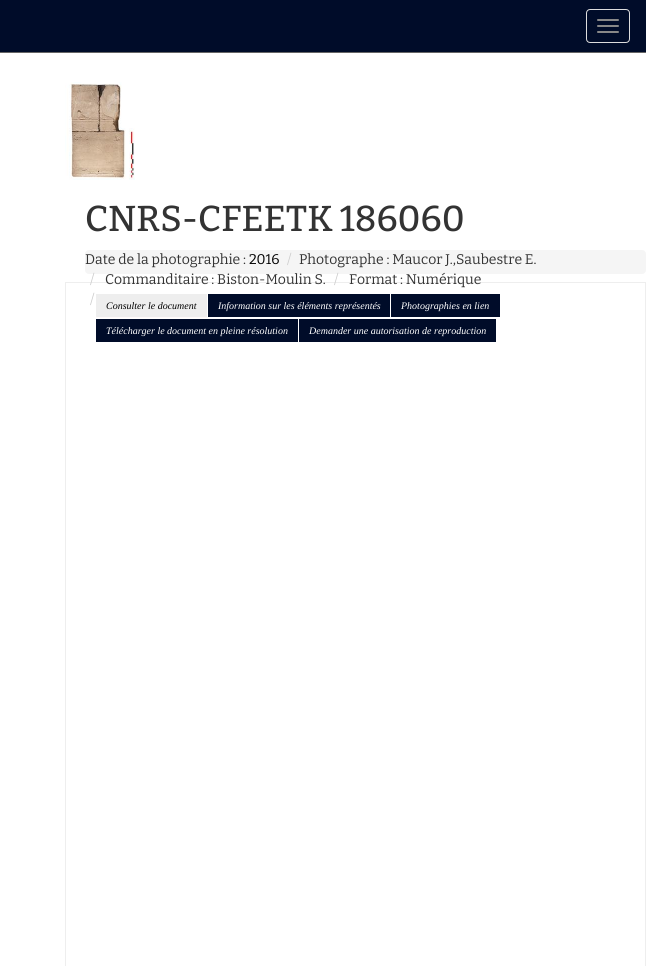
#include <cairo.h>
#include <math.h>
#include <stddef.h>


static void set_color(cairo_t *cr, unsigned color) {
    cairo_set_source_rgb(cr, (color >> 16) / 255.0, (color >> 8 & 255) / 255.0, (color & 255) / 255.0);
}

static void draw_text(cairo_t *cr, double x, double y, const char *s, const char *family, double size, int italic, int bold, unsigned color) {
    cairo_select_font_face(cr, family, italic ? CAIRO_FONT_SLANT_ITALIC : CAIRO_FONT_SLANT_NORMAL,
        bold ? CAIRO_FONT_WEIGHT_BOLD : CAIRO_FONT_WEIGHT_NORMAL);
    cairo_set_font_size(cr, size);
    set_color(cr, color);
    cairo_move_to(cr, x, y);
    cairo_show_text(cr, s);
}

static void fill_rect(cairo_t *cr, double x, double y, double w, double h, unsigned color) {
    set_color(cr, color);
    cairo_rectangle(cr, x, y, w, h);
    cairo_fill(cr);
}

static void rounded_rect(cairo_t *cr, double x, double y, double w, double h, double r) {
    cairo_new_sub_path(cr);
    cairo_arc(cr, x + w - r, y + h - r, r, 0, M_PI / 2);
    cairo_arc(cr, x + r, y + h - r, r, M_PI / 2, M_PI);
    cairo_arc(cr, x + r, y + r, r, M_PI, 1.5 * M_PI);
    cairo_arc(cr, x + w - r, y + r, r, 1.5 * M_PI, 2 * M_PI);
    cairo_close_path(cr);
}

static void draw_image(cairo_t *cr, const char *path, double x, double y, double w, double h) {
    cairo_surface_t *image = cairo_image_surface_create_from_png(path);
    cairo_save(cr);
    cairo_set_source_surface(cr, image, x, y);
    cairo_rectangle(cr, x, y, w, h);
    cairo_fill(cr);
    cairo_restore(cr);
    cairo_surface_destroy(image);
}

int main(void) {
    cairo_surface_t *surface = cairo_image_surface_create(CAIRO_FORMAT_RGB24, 646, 966);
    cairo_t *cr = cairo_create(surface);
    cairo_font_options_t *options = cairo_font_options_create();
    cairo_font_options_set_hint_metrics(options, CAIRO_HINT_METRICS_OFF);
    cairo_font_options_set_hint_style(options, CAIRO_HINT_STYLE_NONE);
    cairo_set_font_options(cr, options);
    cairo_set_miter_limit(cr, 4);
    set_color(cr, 0xFFFFFF);
    cairo_paint(cr);
    fill_rect(cr, 0, 52, 646, 1, 0x666666);
    fill_rect(cr, 0, 0, 646, 52, 0x000C29);
    rounded_rect(cr, 586.5, 9.5, 43, 33, 3.5);
    set_color(cr, 0xDDDDDD);
    cairo_set_line_width(cr, 1);
    cairo_stroke(cr);
    set_color(cr, 0x888888);
    rounded_rect(cr, 597, 19, 22, 2, 1);
    cairo_fill(cr);
    rounded_rect(cr, 597, 25, 22, 2, 1);
    cairo_fill(cr);
    rounded_rect(cr, 597, 31, 22, 2, 1);
    cairo_fill(cr);
    draw_image(cr, "assets/img1.png", 65, 82, 70, 98);
    draw_text(cr, 85, 231, "CNRS-CFEETK 186060", "Bitter Medium", 36, 0, 0, 0x333333);
    set_color(cr, 0xF5F5F5);
    rounded_rect(cr, 85, 250, 561, 24, 4);
    cairo_fill(cr);
    draw_text(cr, 85, 264, "Date de la photographie :", "Bitter", 14, 0, 0, 0x333333);
    draw_text(cr, 249, 264, "2016", "Bitter", 14, 0, 0, 0x000000);
    draw_text(cr, 287, 264, "/", "Bitter", 14, 0, 0, 0xCCCCCC);
    draw_text(cr, 299, 264, "Photographe : Maucor J.,Saubestre E.", "Bitter", 14, 0, 0, 0x333333);
    cairo_rectangle(cr, 65.5, 282.5, 580, 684);
    set_color(cr, 0xEEEEEE);
    cairo_stroke(cr);
    draw_text(cr, 90, 284, "/", "Bitter", 14, 0, 0, 0xCCCCCC);
    draw_text(cr, 105, 284, "Commanditaire : Biston-Moulin S.", "Bitter", 14, 0, 0, 0x333333);
    draw_text(cr, 334, 284, "/", "Bitter", 14, 0, 0, 0xCCCCCC);
    draw_text(cr, 349, 284, "Format : Numérique", "Bitter", 14, 0, 0, 0x333333);
    draw_text(cr, 90, 304, "/", "Bitter", 14, 0, 0, 0xCCCCCC);
    fill_rect(cr, 96, 294, 111, 23, 0xEEEEEE);
    fill_rect(cr, 96, 317, 111, 1, 0xFFFAFA);
    draw_text(cr, 106, 309, "Consulter le document", "Liberation Serif", 10, 1, 0, 0x000000);
    fill_rect(cr, 208, 294, 182, 23, 0x000C29);
    draw_text(cr, 218, 309, "Information sur les éléments représentés", "Liberation Serif", 10, 1, 0, 0xFFFFFF);
    fill_rect(cr, 391, 294, 109, 23, 0x000C29);
    draw_text(cr, 401, 309, "Photographies en lien", "Liberation Serif", 10, 1, 0, 0xFFFFFF);
    fill_rect(cr, 96, 319, 202, 23, 0x000C29);
    draw_text(cr, 106, 334, "Télécharger le document en pleine résolution", "Liberation Serif", 10, 1, 0, 0xFFFFFF);
    fill_rect(cr, 299, 319, 197, 23, 0x000C29);
    draw_text(cr, 309, 334, "Demander une autorisation de reproduction", "Liberation Serif", 10, 1, 0, 0xFFFFFF);
    cairo_surface_write_to_png(surface, "output.png");
    cairo_font_options_destroy(options);
    cairo_destroy(cr);
    cairo_surface_destroy(surface);
    return 0;
}
